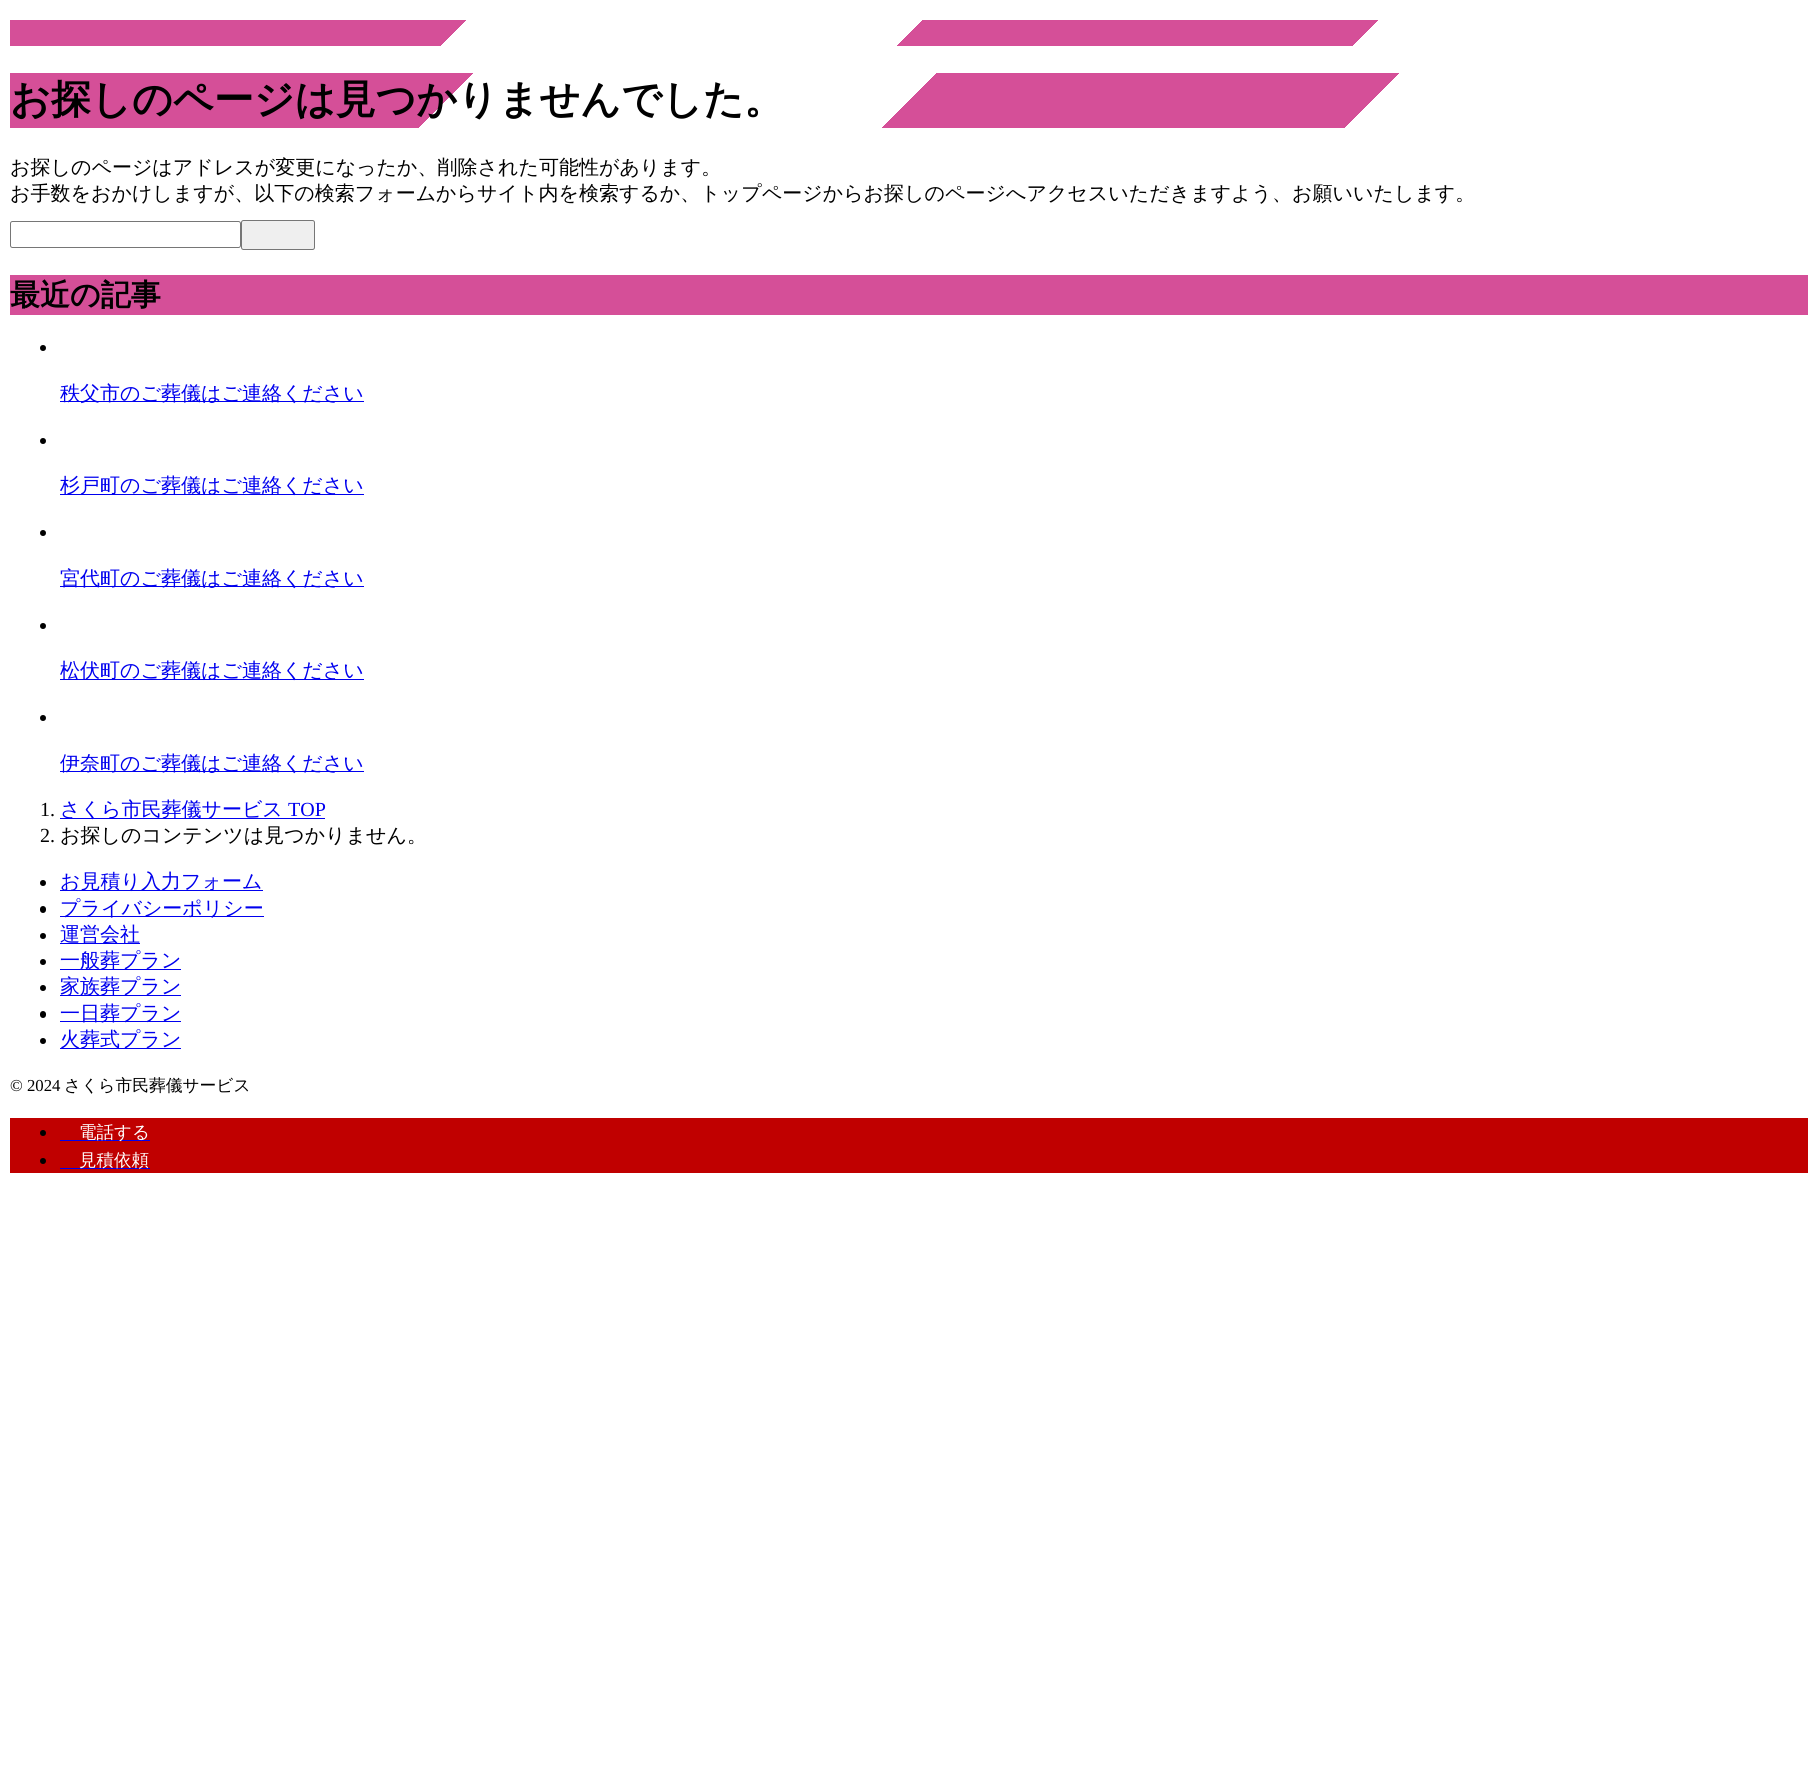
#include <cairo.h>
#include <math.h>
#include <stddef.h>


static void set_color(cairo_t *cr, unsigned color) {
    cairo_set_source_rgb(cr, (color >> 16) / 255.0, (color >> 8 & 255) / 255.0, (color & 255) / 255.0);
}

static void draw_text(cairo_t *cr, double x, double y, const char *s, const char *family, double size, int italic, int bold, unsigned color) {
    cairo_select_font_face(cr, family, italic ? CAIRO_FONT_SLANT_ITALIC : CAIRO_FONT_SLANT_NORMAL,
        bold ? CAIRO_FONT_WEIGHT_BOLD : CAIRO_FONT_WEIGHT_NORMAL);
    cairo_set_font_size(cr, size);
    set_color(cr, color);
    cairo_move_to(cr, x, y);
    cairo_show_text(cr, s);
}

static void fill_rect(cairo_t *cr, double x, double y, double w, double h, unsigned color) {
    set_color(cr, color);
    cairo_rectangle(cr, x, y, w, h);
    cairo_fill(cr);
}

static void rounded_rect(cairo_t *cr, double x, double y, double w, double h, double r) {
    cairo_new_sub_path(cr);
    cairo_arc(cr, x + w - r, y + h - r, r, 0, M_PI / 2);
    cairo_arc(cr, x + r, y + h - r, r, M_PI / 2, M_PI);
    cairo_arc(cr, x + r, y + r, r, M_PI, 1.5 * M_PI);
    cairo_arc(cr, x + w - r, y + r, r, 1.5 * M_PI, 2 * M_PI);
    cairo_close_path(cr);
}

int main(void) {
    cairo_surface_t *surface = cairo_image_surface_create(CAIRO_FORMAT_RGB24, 1817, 1766);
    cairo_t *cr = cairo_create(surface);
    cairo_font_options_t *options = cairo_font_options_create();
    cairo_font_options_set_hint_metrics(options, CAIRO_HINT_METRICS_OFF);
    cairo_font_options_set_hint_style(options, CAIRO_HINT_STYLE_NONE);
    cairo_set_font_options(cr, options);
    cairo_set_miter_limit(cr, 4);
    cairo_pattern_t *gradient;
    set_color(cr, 0xFFFFFF);
    cairo_paint(cr);
    gradient = cairo_pattern_create_linear(1365, 489, 453, -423);
    cairo_pattern_add_color_stop_rgba(gradient, 0.25, 1, 1, 1, 1);
    cairo_pattern_add_color_stop_rgba(gradient, 0.25, 0.835, 0.31, 0.596, 1);
    cairo_pattern_add_color_stop_rgba(gradient, 0.5, 0.835, 0.31, 0.596, 1);
    cairo_pattern_add_color_stop_rgba(gradient, 0.5, 1, 1, 1, 1);
    cairo_pattern_add_color_stop_rgba(gradient, 0.75, 1, 1, 1, 1);
    cairo_pattern_add_color_stop_rgba(gradient, 0.75, 0.835, 0.31, 0.596, 1);
    cairo_pattern_add_color_stop_rgba(gradient, 1, 0.835, 0.31, 0.596, 1);
    cairo_set_source(cr, gradient);
    cairo_pattern_destroy(gradient);
    cairo_rectangle(cr, 10, 20, 1368, 26);
    cairo_fill(cr);
    gradient = cairo_pattern_create_linear(1372, 563, 446, -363);
    cairo_pattern_add_color_stop_rgba(gradient, 0.25, 1, 1, 1, 1);
    cairo_pattern_add_color_stop_rgba(gradient, 0.25, 0.835, 0.31, 0.596, 1);
    cairo_pattern_add_color_stop_rgba(gradient, 0.5, 0.835, 0.31, 0.596, 1);
    cairo_pattern_add_color_stop_rgba(gradient, 0.5, 1, 1, 1, 1);
    cairo_pattern_add_color_stop_rgba(gradient, 0.75, 1, 1, 1, 1);
    cairo_pattern_add_color_stop_rgba(gradient, 0.75, 0.835, 0.31, 0.596, 1);
    cairo_pattern_add_color_stop_rgba(gradient, 1, 0.835, 0.31, 0.596, 1);
    cairo_set_source(cr, gradient);
    cairo_pattern_destroy(gradient);
    cairo_rectangle(cr, 10, 73, 1389, 55);
    cairo_fill(cr);
    draw_text(cr, 10, 113, "お探しのページは見つかりませんでした。", "WenQuanYi Zen Hei", 40, 0, 1, 0x000000);
    draw_text(cr, 10, 174, "お探しのページはアドレスが変更になったか、削除された可能性があります。", "WenQuanYi Zen Hei Medium", 20, 0, 0, 0x000000);
    draw_text(cr, 10, 200, "お手数をおかけしますが、以下の検索フォームからサイト内を検索するか、トップページからお探しのページへアクセスいただきますよう、お願いいたします。", "WenQuanYi Zen Hei Medium", 20, 0, 0, 0x000000);
    rounded_rect(cr, 10.5, 221.5, 230, 26, 2);
    set_color(cr, 0x767676);
    cairo_set_line_width(cr, 1);
    cairo_stroke(cr);
    set_color(cr, 0xEFEFEF);
    rounded_rect(cr, 241.5, 220.5, 73, 29, 2);
    cairo_fill_preserve(cr);
    set_color(cr, 0x767676);
    cairo_stroke(cr);
    fill_rect(cr, 10, 275, 1798, 40, 0xD54F98);
    draw_text(cr, 10, 305, "最近の記事", "WenQuanYi Zen Hei", 30, 0, 1, 0x000000);
    cairo_new_path(cr);
    cairo_arc(cr, 43, 348, 3, 0, 2 * M_PI);
    cairo_fill(cr);
    fill_rect(cr, 60, 401, 304, 1, 0x0000EE);
    draw_text(cr, 60, 400, "秩父市のご葬儀はご連絡ください", "WenQuanYi Zen Hei Medium", 20, 0, 0, 0x0000EE);
    set_color(cr, 0x000000);
    cairo_new_path(cr);
    cairo_arc(cr, 43, 441, 3, 0, 2 * M_PI);
    cairo_fill(cr);
    fill_rect(cr, 60, 494, 304, 1, 0x0000EE);
    draw_text(cr, 60, 492, "杉戸町のご葬儀はご連絡ください", "WenQuanYi Zen Hei Medium", 20, 0, 0, 0x0000EE);
    set_color(cr, 0x000000);
    cairo_new_path(cr);
    cairo_arc(cr, 43, 533, 3, 0, 2 * M_PI);
    cairo_fill(cr);
    fill_rect(cr, 60, 586, 304, 1, 0x0000EE);
    draw_text(cr, 60, 585, "宮代町のご葬儀はご連絡ください", "WenQuanYi Zen Hei Medium", 20, 0, 0, 0x0000EE);
    set_color(cr, 0x000000);
    cairo_new_path(cr);
    cairo_arc(cr, 43, 626, 3, 0, 2 * M_PI);
    cairo_fill(cr);
    fill_rect(cr, 60, 679, 304, 1, 0x0000EE);
    draw_text(cr, 60, 677, "松伏町のご葬儀はご連絡ください", "WenQuanYi Zen Hei Medium", 20, 0, 0, 0x0000EE);
    set_color(cr, 0x000000);
    cairo_new_path(cr);
    cairo_arc(cr, 43, 718, 3, 0, 2 * M_PI);
    cairo_fill(cr);
    fill_rect(cr, 60, 771, 304, 1, 0x0000EE);
    draw_text(cr, 60, 770, "伊奈町のご葬儀はご連絡ください", "WenQuanYi Zen Hei Medium", 20, 0, 0, 0x0000EE);
    draw_text(cr, 40, 816, "1.", "Liberation Serif", 20, 0, 0, 0x000000);
    fill_rect(cr, 60, 818, 265, 1, 0x0000EE);
    draw_text(cr, 60, 816, "さくら市民葬儀サービス", "WenQuanYi Zen Hei Medium", 20, 0, 0, 0x0000EE);
    draw_text(cr, 288, 816, "TOP", "Liberation Serif", 20, 0, 0, 0x0000EE);
    draw_text(cr, 40, 842, "2.", "Liberation Serif", 20, 0, 0, 0x000000);
    draw_text(cr, 60, 842, "お探しのコンテンツは見つかりません。", "WenQuanYi Zen Hei Medium", 20, 0, 0, 0x000000);
    cairo_new_path(cr);
    cairo_arc(cr, 43, 883, 3, 0, 2 * M_PI);
    cairo_fill(cr);
    fill_rect(cr, 60, 890, 203, 1, 0x0000EE);
    draw_text(cr, 60, 888, "お見積り入力フォーム", "WenQuanYi Zen Hei Medium", 20, 0, 0, 0x0000EE);
    set_color(cr, 0x000000);
    rounded_rect(cr, 40, 906, 6, 7, 3);
    cairo_fill(cr);
    fill_rect(cr, 60, 916, 204, 1, 0x0000EE);
    draw_text(cr, 60, 915, "プライバシーポリシー", "WenQuanYi Zen Hei Medium", 20, 0, 0, 0x0000EE);
    set_color(cr, 0x000000);
    cairo_new_path(cr);
    cairo_arc(cr, 43, 936, 3, 0, 2 * M_PI);
    cairo_fill(cr);
    fill_rect(cr, 60, 943, 80, 1, 0x0000EE);
    draw_text(cr, 60, 941, "運営会社", "WenQuanYi Zen Hei Medium", 20, 0, 0, 0x0000EE);
    set_color(cr, 0x000000);
    cairo_new_path(cr);
    cairo_arc(cr, 43, 962, 3, 0, 2 * M_PI);
    cairo_fill(cr);
    fill_rect(cr, 60, 969, 121, 1, 0x0000EE);
    draw_text(cr, 60, 967, "一般葬プラン", "WenQuanYi Zen Hei Medium", 20, 0, 0, 0x0000EE);
    set_color(cr, 0x000000);
    cairo_new_path(cr);
    cairo_arc(cr, 43, 988, 3, 0, 2 * M_PI);
    cairo_fill(cr);
    fill_rect(cr, 60, 995, 121, 1, 0x0000EE);
    draw_text(cr, 60, 993, "家族葬プラン", "WenQuanYi Zen Hei Medium", 20, 0, 0, 0x0000EE);
    set_color(cr, 0x000000);
    rounded_rect(cr, 40, 1011, 6, 7, 3);
    cairo_fill(cr);
    fill_rect(cr, 60, 1021, 121, 1, 0x0000EE);
    draw_text(cr, 60, 1020, "一日葬プラン", "WenQuanYi Zen Hei Medium", 20, 0, 0, 0x0000EE);
    set_color(cr, 0x000000);
    cairo_new_path(cr);
    cairo_arc(cr, 43, 1041, 3, 0, 2 * M_PI);
    cairo_fill(cr);
    fill_rect(cr, 60, 1048, 121, 1, 0x0000EE);
    draw_text(cr, 60, 1046, "火葬式プラン", "WenQuanYi Zen Hei Medium", 20, 0, 0, 0x0000EE);
    draw_text(cr, 10, 1091, "© 2024", "Liberation Serif", 16.75, 0, 0, 0x000000);
    draw_text(cr, 64, 1091, "さくら市民葬儀サービス", "WenQuanYi Zen Hei Medium", 16.75, 0, 0, 0x000000);
    fill_rect(cr, 10, 1118, 1798, 55, 0xC00000);
    set_color(cr, 0x000000);
    cairo_new_path(cr);
    cairo_arc(cr, 43, 1133, 3, 0, 2 * M_PI);
    cairo_fill(cr);
    fill_rect(cr, 60, 1140, 90, 1, 0x0000EE);
    draw_text(cr, 79, 1138, "電話する", "WenQuanYi Zen Hei Medium", 17.5, 0, 0, 0xFFFFFF);
    set_color(cr, 0x000000);
    cairo_new_path(cr);
    cairo_arc(cr, 43, 1161, 3, 0, 2 * M_PI);
    cairo_fill(cr);
    fill_rect(cr, 60, 1168, 90, 1, 0x0000EE);
    draw_text(cr, 79, 1166, "見積依頼", "WenQuanYi Zen Hei Medium", 17.5, 0, 0, 0xFFFFFF);
    cairo_surface_write_to_png(surface, "output.png");
    cairo_font_options_destroy(options);
    cairo_destroy(cr);
    cairo_surface_destroy(surface);
    return 0;
}
